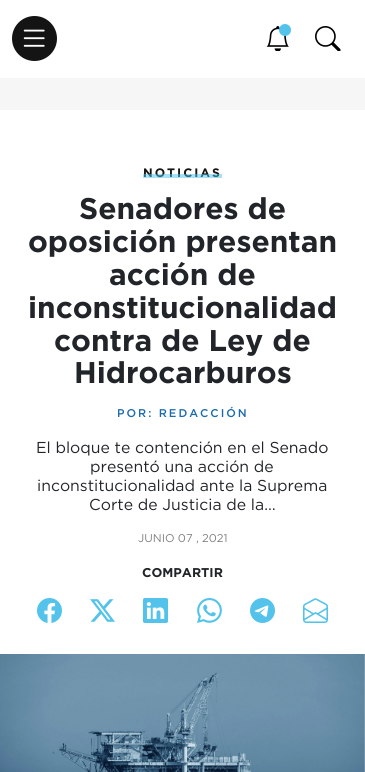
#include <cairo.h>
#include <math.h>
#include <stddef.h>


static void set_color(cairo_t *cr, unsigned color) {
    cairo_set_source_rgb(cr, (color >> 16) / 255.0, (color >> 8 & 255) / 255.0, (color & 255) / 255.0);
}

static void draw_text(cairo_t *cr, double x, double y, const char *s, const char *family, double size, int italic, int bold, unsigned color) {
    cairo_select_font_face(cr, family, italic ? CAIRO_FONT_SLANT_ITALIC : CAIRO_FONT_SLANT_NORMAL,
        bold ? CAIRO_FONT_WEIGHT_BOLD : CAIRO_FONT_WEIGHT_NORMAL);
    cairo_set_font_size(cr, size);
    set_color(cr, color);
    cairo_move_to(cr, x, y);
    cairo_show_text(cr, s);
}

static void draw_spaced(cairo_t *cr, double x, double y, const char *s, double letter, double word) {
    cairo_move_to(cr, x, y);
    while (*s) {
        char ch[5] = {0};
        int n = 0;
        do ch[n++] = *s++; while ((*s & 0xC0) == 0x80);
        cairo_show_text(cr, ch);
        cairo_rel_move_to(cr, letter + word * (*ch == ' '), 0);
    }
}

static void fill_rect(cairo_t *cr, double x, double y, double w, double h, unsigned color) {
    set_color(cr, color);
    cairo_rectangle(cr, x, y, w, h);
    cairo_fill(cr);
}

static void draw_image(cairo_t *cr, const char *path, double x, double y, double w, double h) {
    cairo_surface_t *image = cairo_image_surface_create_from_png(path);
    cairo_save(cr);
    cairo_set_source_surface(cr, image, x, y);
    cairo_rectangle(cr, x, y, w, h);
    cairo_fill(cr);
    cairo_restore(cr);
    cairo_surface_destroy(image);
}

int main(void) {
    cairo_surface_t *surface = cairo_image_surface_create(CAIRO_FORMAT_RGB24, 365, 772);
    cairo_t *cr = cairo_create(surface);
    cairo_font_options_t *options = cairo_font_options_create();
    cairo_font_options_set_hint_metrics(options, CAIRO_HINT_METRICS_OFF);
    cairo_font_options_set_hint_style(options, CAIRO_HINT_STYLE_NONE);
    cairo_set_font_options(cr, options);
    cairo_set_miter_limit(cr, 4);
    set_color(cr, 0xFFFFFF);
    cairo_paint(cr);
    set_color(cr, 0x141414);
    cairo_arc(cr, 34.5, 38.5, 21, 0, 2 * M_PI);
    cairo_fill_preserve(cr);
    cairo_set_line_width(cr, 3);
    cairo_stroke(cr);
    draw_image(cr, "assets/img1.png", 23, 29, 22, 18);
    draw_image(cr, "assets/img2.png", 266, 26, 23, 25);
    set_color(cr, 0x53C3EB);
    cairo_arc(cr, 285, 30, 6, 0, 2 * M_PI);
    cairo_fill(cr);
    draw_image(cr, "assets/img3.png", 315, 26, 26, 25);
    fill_rect(cr, 0, 78, 365, 32, 0xF6F6F6);
    cairo_select_font_face(cr, "Gotham", CAIRO_FONT_SLANT_NORMAL, CAIRO_FONT_WEIGHT_BOLD);
    cairo_set_font_size(cr, 12.25);
    set_color(cr, 0x141414);
    draw_spaced(cr, 143, 177, "NOTICIAS", 2, 0);
    cairo_set_source_rgba(cr, 0.325, 0.765, 0.922, 0.5);
    cairo_rectangle(cr, 143, 174, 79, 4);
    cairo_fill(cr);
    draw_text(cr, 79, 219, "Senadores de", "Gotham", 29.9, 0, 1, 0x212529);
    draw_text(cr, 28, 252, "oposición presentan", "Gotham", 29.9, 0, 1, 0x212529);
    draw_text(cr, 109, 285, "acción de", "Gotham", 29.9, 0, 1, 0x212529);
    draw_text(cr, 28, 318, "inconstitucionalidad", "Gotham", 29.9, 0, 1, 0x212529);
    draw_text(cr, 54, 351, "contra de Ley de", "Gotham", 29.9, 0, 1, 0x212529);
    draw_text(cr, 74, 383, "Hidrocarburos", "Gotham", 29.9, 0, 1, 0x212529);
    cairo_select_font_face(cr, "Gotham Medium", CAIRO_FONT_SLANT_NORMAL, CAIRO_FONT_WEIGHT_NORMAL);
    cairo_set_font_size(cr, 11.25);
    set_color(cr, 0x1B6BAC);
    draw_spaced(cr, 117, 417, "POR: REDACCIÓN", 2, 0);
    draw_text(cr, 36, 453, "El bloque te contención en el Senado", "Gotham", 15.8, 0, 0, 0x212529);
    draw_text(cr, 90, 472, "presentó una acción de", "Gotham", 15.8, 0, 0, 0x212529);
    draw_text(cr, 37, 491, "inconstitucionalidad ante la Suprema", "Gotham", 15.8, 0, 0, 0x212529);
    draw_text(cr, 89, 510, "Corte de Justicia de la…", "Gotham", 15.8, 0, 0, 0x212529);
    draw_text(cr, 138, 542, "JUNIO 07 , 2021", "Gotham", 11.25, 0, 0, 0x808080);
    draw_text(cr, 142, 577, "COMPARTIR", "Gotham", 12.75, 0, 1, 0x212529);
    draw_image(cr, "assets/img4.png", 37, 598, 25, 25);
    draw_image(cr, "assets/img5.png", 90, 599, 25, 23);
    draw_image(cr, "assets/img6.png", 143, 598, 25, 25);
    draw_image(cr, "assets/img7.png", 197, 598, 25, 25);
    draw_image(cr, "assets/img8.png", 250, 598, 25, 25);
    draw_image(cr, "assets/img9.png", 303, 598, 25, 25);
    draw_image(cr, "assets/img10.png", 0, 654, 365, 118);
    cairo_surface_write_to_png(surface, "output.png");
    cairo_font_options_destroy(options);
    cairo_destroy(cr);
    cairo_surface_destroy(surface);
    return 0;
}
